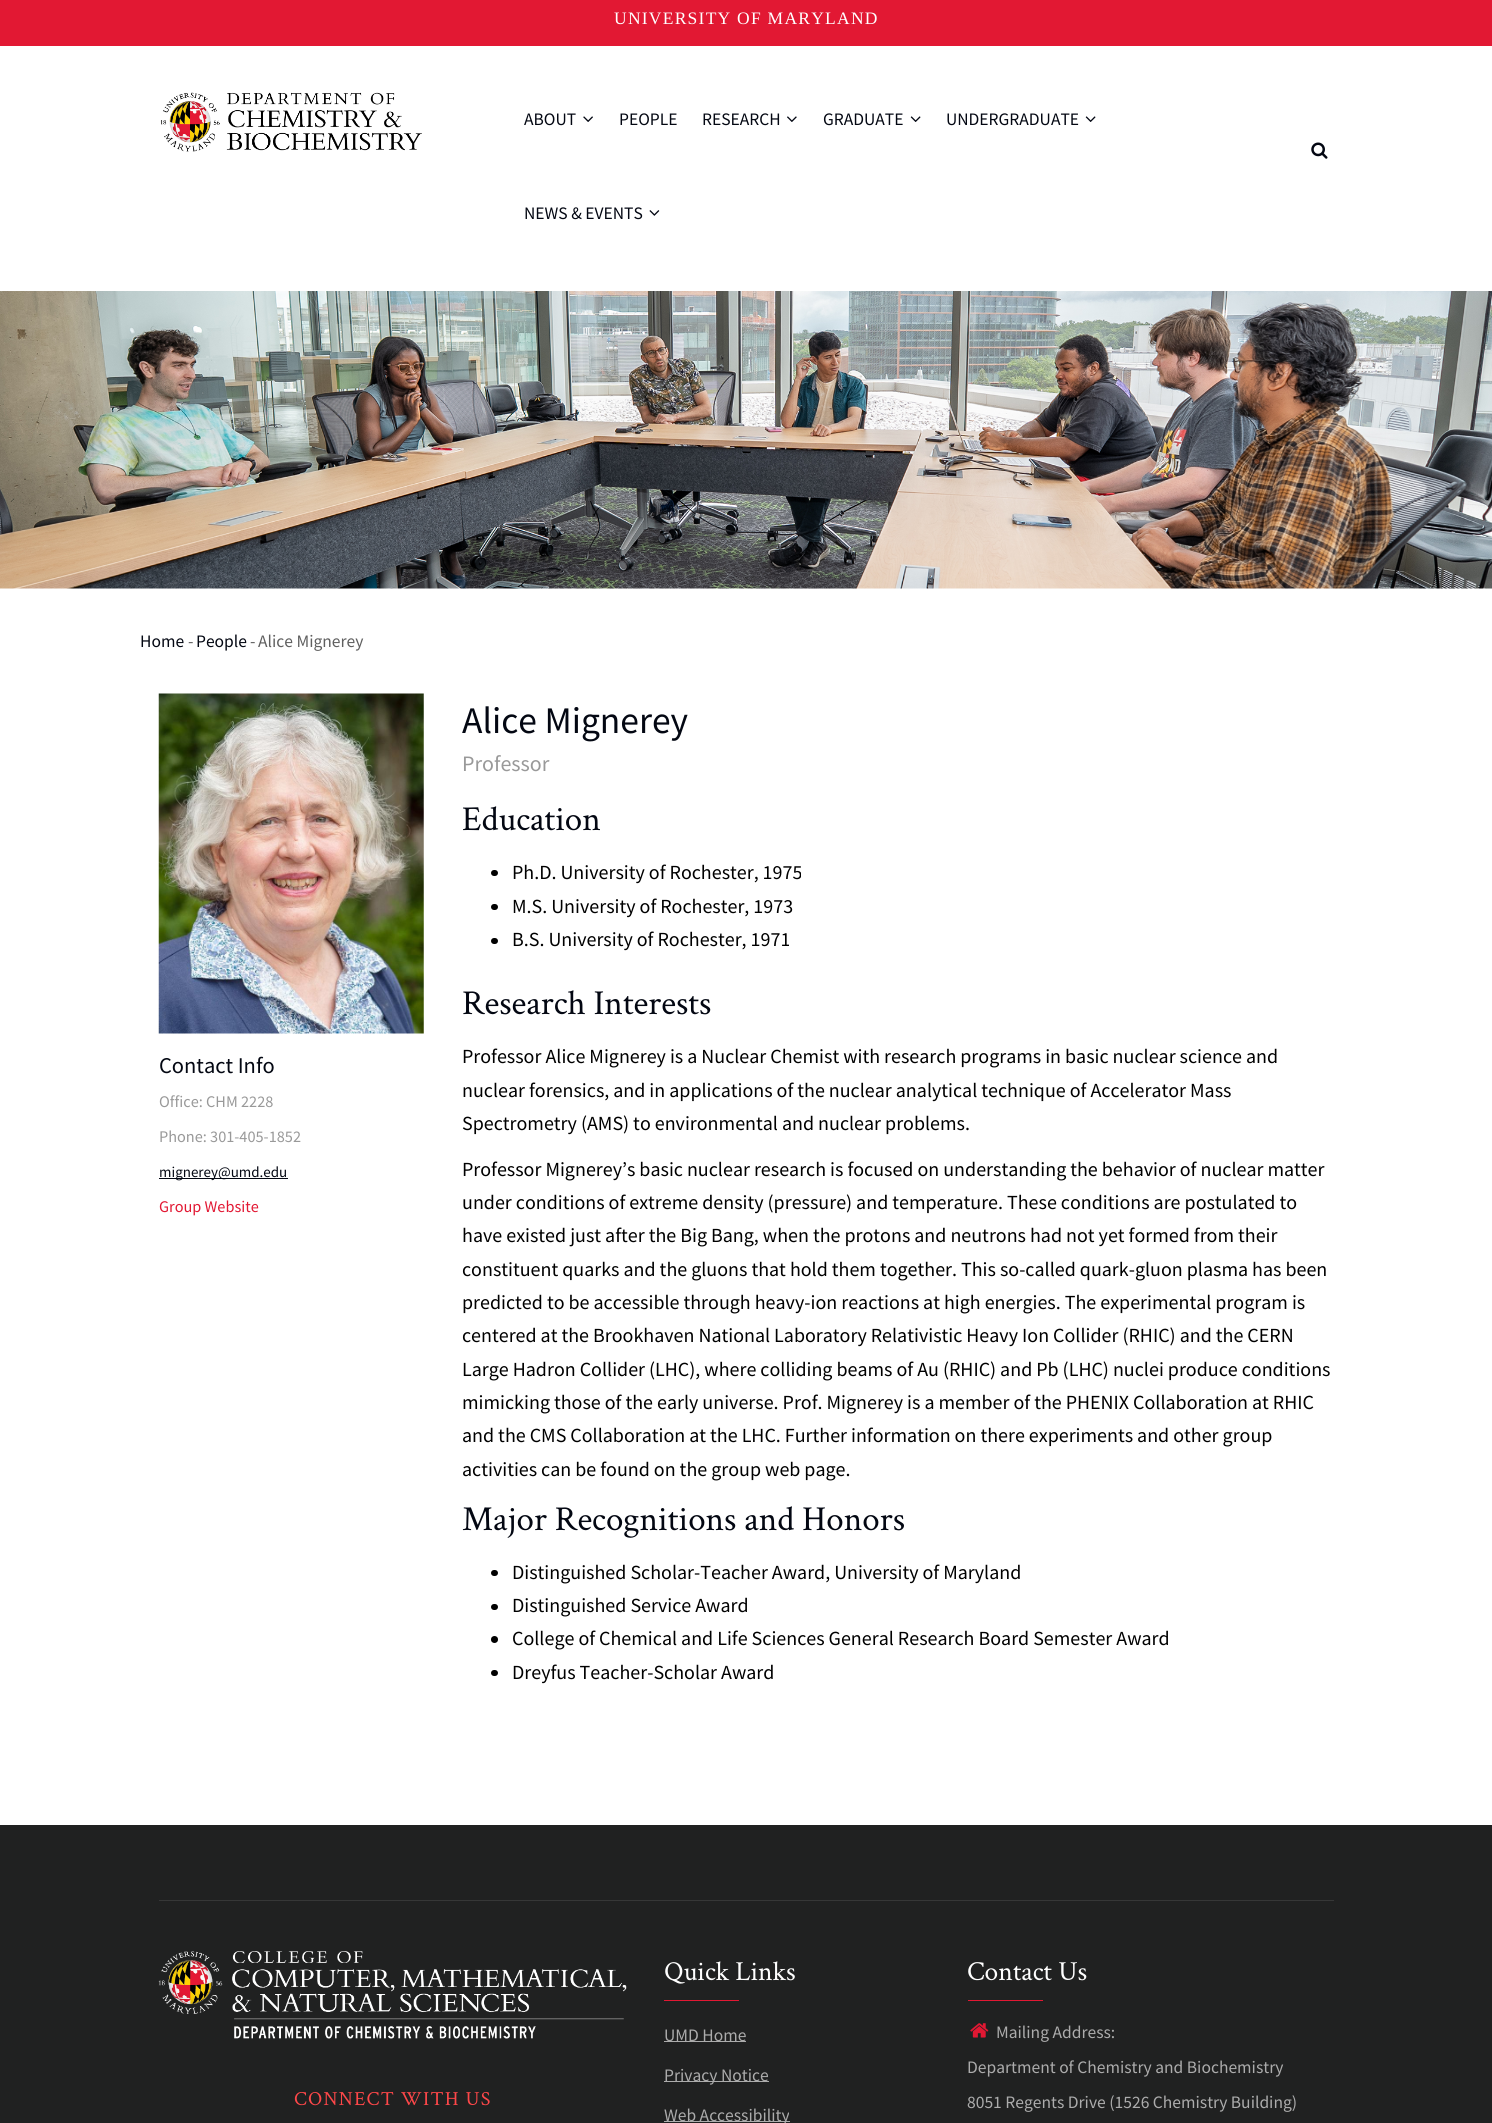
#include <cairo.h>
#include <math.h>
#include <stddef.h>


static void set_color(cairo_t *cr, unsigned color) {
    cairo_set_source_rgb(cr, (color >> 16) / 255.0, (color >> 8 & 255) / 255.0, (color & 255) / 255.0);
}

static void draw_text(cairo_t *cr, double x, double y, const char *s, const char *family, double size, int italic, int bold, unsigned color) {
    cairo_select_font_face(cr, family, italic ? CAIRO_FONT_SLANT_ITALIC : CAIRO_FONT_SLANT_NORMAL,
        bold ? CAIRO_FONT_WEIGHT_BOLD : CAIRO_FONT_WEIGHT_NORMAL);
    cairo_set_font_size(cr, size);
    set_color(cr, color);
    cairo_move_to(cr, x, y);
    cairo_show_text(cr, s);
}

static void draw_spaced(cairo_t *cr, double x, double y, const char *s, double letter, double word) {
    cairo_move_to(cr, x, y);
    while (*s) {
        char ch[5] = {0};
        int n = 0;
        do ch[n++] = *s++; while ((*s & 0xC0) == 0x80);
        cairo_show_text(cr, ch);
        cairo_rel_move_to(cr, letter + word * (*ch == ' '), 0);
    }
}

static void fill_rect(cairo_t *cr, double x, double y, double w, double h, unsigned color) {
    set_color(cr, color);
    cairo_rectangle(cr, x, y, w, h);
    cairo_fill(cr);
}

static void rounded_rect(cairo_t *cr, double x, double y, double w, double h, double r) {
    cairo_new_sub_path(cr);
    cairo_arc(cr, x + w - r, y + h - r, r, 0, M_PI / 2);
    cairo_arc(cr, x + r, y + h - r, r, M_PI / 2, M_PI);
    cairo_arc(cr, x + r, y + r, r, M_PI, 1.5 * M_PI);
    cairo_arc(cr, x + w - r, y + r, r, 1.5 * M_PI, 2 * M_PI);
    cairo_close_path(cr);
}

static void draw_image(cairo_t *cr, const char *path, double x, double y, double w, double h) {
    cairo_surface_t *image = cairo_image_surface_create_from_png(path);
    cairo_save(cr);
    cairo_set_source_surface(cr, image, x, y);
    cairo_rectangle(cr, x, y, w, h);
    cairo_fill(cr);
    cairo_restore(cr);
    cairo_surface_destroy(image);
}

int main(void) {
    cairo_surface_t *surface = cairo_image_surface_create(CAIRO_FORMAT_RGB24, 1492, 2123);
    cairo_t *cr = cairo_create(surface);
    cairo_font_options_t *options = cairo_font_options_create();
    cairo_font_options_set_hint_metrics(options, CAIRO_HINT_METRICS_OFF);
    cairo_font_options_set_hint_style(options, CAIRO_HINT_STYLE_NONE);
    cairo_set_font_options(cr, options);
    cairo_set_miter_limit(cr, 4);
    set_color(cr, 0xFFFFFF);
    cairo_paint(cr);
    fill_rect(cr, 0, 0, 1492, 46, 0xE21833);
    cairo_select_font_face(cr, "Liberation Serif", CAIRO_FONT_SLANT_NORMAL, CAIRO_FONT_WEIGHT_NORMAL);
    cairo_set_font_size(cr, 17.5);
    set_color(cr, 0xFFFFFF);
    draw_spaced(cr, 614, 24, "UNIVERSITY OF MARYLAND", 1.25, 0);
    draw_image(cr, "assets/img1.png", 160, 92, 262, 60);
    draw_text(cr, 524, 125, "ABOUT", "Source Sans Pro", 17.5, 0, 0, 0x030712);
    draw_image(cr, "assets/img2.png", 583, 116, 10, 6);
    draw_text(cr, 619, 125, "PEOPLE", "Source Sans Pro", 17.5, 0, 0, 0x030712);
    draw_text(cr, 702, 125, "RESEARCH", "Source Sans Pro", 17.5, 0, 0, 0x030712);
    draw_image(cr, "assets/img3.png", 787, 116, 10, 6);
    draw_text(cr, 823, 125, "GRADUATE", "Source Sans Pro", 17.5, 0, 0, 0x030712);
    draw_image(cr, "assets/img4.png", 910, 116, 11, 6);
    draw_text(cr, 946, 125, "UNDERGRADUATE", "Source Sans Pro", 17.5, 0, 0, 0x030712);
    draw_image(cr, "assets/img4.png", 1085, 116, 11, 6);
    draw_text(cr, 524, 219, "NEWS & EVENTS", "Source Sans Pro", 17.5, 0, 0, 0x030712);
    draw_image(cr, "assets/img5.png", 649, 210, 11, 6);
    draw_image(cr, "assets/img6.png", 1311, 142, 17, 17);
    draw_image(cr, "assets/img7.png", 0, 291, 1492, 298);
    draw_text(cr, 140, 647, "Home", "Source Sans Pro", 17.5, 0, 0, 0x030712);
    draw_text(cr, 188, 647, "-", "Source Sans Pro", 17.5, 0, 0, 0x5F5F5F);
    draw_text(cr, 196, 647, "People", "Source Sans Pro", 17.5, 0, 0, 0x030712);
    draw_text(cr, 250, 647, "-", "Source Sans Pro", 17.5, 0, 0, 0x5F5F5F);
    draw_text(cr, 258, 647, "Alice Mignerey", "Source Sans Pro", 17.5, 0, 0, 0x5F5F5F);
    draw_image(cr, "assets/img8.png", 158, 693, 266, 341);
    draw_text(cr, 159, 1073, "Contact Info", "Source Sans Pro", 22.5, 0, 0, 0x030712);
    draw_text(cr, 159, 1107, "Office: CHM 2228", "Source Sans Pro", 16.25, 0, 0, 0x999999);
    draw_text(cr, 159, 1142, "Phone: 301-405-1852", "Source Sans Pro", 16.25, 0, 0, 0x999999);
    fill_rect(cr, 159, 1178, 129, 1, 0x030712);
    draw_text(cr, 159, 1177, "mignerey@umd.edu", "Source Sans Pro", 15, 0, 0, 0x030712);
    draw_text(cr, 159, 1212, "Group Website", "Source Sans Pro", 16.25, 0, 0, 0xE21833);
    draw_text(cr, 462, 733, "Alice Mignerey", "Source Sans Pro", 37.5, 0, 0, 0x030712);
    draw_text(cr, 462, 771, "Professor", "Source Sans Pro", 22, 0, 0, 0x999999);
    draw_text(cr, 462, 830, "Education", "Crimson Text", 35, 0, 0, 0x030712);
    set_color(cr, 0x000000);
    rounded_rect(cr, 491, 870, 7, 6, 3);
    cairo_fill(cr);
    draw_text(cr, 512, 879, "Ph.D. University of Rochester, 1975", "Source Sans Pro", 20, 0, 0, 0x000000);
    rounded_rect(cr, 491, 904, 7, 6, 3);
    cairo_fill(cr);
    draw_text(cr, 512, 913, "M.S. University of Rochester, 1973", "Source Sans Pro", 20, 0, 0, 0x000000);
    rounded_rect(cr, 491, 938, 7, 6, 3);
    cairo_fill(cr);
    draw_text(cr, 512, 946, "B.S. University of Rochester, 1971", "Source Sans Pro", 20, 0, 0, 0x000000);
    draw_text(cr, 462, 1014, "Research Interests", "Crimson Text", 35, 0, 0, 0x030712);
    draw_text(cr, 462, 1063, "Professor Alice Mignerey is a Nuclear Chemist with research programs in basic nuclear science and", "Source Sans Pro", 20, 0, 0, 0x000000);
    draw_text(cr, 462, 1097, "nuclear forensics, and in applications of the nuclear analytical technique of Accelerator Mass", "Source Sans Pro", 20, 0, 0, 0x000000);
    draw_text(cr, 462, 1130, "Spectrometry (AMS) to environmental and nuclear problems.", "Source Sans Pro", 20, 0, 0, 0x000000);
    draw_text(cr, 462, 1176, "Professor Mignerey’s basic nuclear research is focused on understanding the behavior of nuclear matter", "Source Sans Pro", 20, 0, 0, 0x000000);
    draw_text(cr, 462, 1209, "under conditions of extreme density (pressure) and temperature. These conditions are postulated to", "Source Sans Pro", 20, 0, 0, 0x000000);
    draw_text(cr, 462, 1242, "have existed just after the Big Bang, when the protons and neutrons had not yet formed from their", "Source Sans Pro", 20, 0, 0, 0x000000);
    draw_text(cr, 462, 1276, "constituent quarks and the gluons that hold them together. This so-called quark-gluon plasma has been", "Source Sans Pro", 20, 0, 0, 0x000000);
    draw_text(cr, 462, 1309, "predicted to be accessible through heavy-ion reactions at high energies. The experimental program is", "Source Sans Pro", 20, 0, 0, 0x000000);
    draw_text(cr, 462, 1342, "centered at the Brookhaven National Laboratory Relativistic Heavy Ion Collider (RHIC) and the CERN", "Source Sans Pro", 20, 0, 0, 0x000000);
    draw_text(cr, 462, 1376, "Large Hadron Collider (LHC), where colliding beams of Au (RHIC) and Pb (LHC) nuclei produce conditions", "Source Sans Pro", 20, 0, 0, 0x000000);
    draw_text(cr, 462, 1409, "mimicking those of the early universe. Prof. Mignerey is a member of the PHENIX Collaboration at RHIC", "Source Sans Pro", 20, 0, 0, 0x000000);
    draw_text(cr, 462, 1442, "and the CMS Collaboration at the LHC. Further information on there experiments and other group", "Source Sans Pro", 20, 0, 0, 0x000000);
    draw_text(cr, 462, 1476, "activities can be found on the group web page.", "Source Sans Pro", 20, 0, 0, 0x000000);
    draw_text(cr, 462, 1530, "Major Recognitions and Honors", "Crimson Text", 35, 0, 0, 0x030712);
    set_color(cr, 0x000000);
    rounded_rect(cr, 491, 1570, 7, 6, 3);
    cairo_fill(cr);
    draw_text(cr, 512, 1579, "Distinguished Scholar-Teacher Award, University of Maryland", "Source Sans Pro", 20, 0, 0, 0x000000);
    rounded_rect(cr, 491, 1604, 7, 6, 3);
    cairo_fill(cr);
    draw_text(cr, 512, 1612, "Distinguished Service Award", "Source Sans Pro", 20, 0, 0, 0x000000);
    cairo_new_path(cr);
    cairo_arc(cr, 494.5, 1639.5, 3.5, 0, 2 * M_PI);
    cairo_fill(cr);
    draw_text(cr, 512, 1645, "College of Chemical and Life Sciences General Research Board Semester Award", "Source Sans Pro", 20, 0, 0, 0x000000);
    rounded_rect(cr, 491, 1670, 7, 6, 3);
    cairo_fill(cr);
    draw_text(cr, 512, 1679, "Dreyfus Teacher-Scholar Award", "Source Sans Pro", 20, 0, 0, 0x000000);
    fill_rect(cr, 0, 1825, 1492, 298, 0x202121);
    fill_rect(cr, 159, 1900, 1175, 1, 0x363737);
    draw_image(cr, "assets/img9.png", 158, 1951, 469, 88);
    cairo_select_font_face(cr, "Crimson Text", CAIRO_FONT_SLANT_NORMAL, CAIRO_FONT_WEIGHT_NORMAL);
    set_color(cr, 0xFF4749);
    draw_spaced(cr, 294, 2105, "CONNECT WITH US", 1.25, 0);
    draw_text(cr, 664, 1980, "Quick Links", "Crimson Text", 27.5, 0, 0, 0xFFFFFF);
    fill_rect(cr, 664, 2000, 75, 1, 0xE21833);
    fill_rect(cr, 664, 2041, 82, 1, 0xACACAC);
    draw_text(cr, 664, 2041, "UMD Home", "Source Sans Pro", 17.5, 0, 0, 0xACACAC);
    fill_rect(cr, 664, 2081, 105, 1, 0xACACAC);
    draw_text(cr, 664, 2081, "Privacy Notice", "Source Sans Pro", 17.5, 0, 0, 0xACACAC);
    fill_rect(cr, 664, 2121, 126, 1, 0xACACAC);
    draw_text(cr, 664, 2121, "Web Accessibility", "Source Sans Pro", 17.5, 0, 0, 0xACACAC);
    draw_text(cr, 967, 1980, "Contact Us", "Crimson Text", 27.5, 0, 0, 0xFFFFFF);
    fill_rect(cr, 968, 2000, 75, 1, 0xE21833);
    draw_image(cr, "assets/img10.png", 970, 2023, 19, 15);
    draw_text(cr, 996, 2038, "Mailing Address:", "Source Sans Pro", 17.5, 0, 0, 0xACACAC);
    draw_text(cr, 967, 2073, "Department of Chemistry and Biochemistry", "Source Sans Pro", 17.5, 0, 0, 0xACACAC);
    draw_text(cr, 967, 2108, "8051 Regents Drive (1526 Chemistry Building)", "Source Sans Pro", 17.5, 0, 0, 0xACACAC);
    cairo_surface_write_to_png(surface, "output.png");
    cairo_font_options_destroy(options);
    cairo_destroy(cr);
    cairo_surface_destroy(surface);
    return 0;
}
